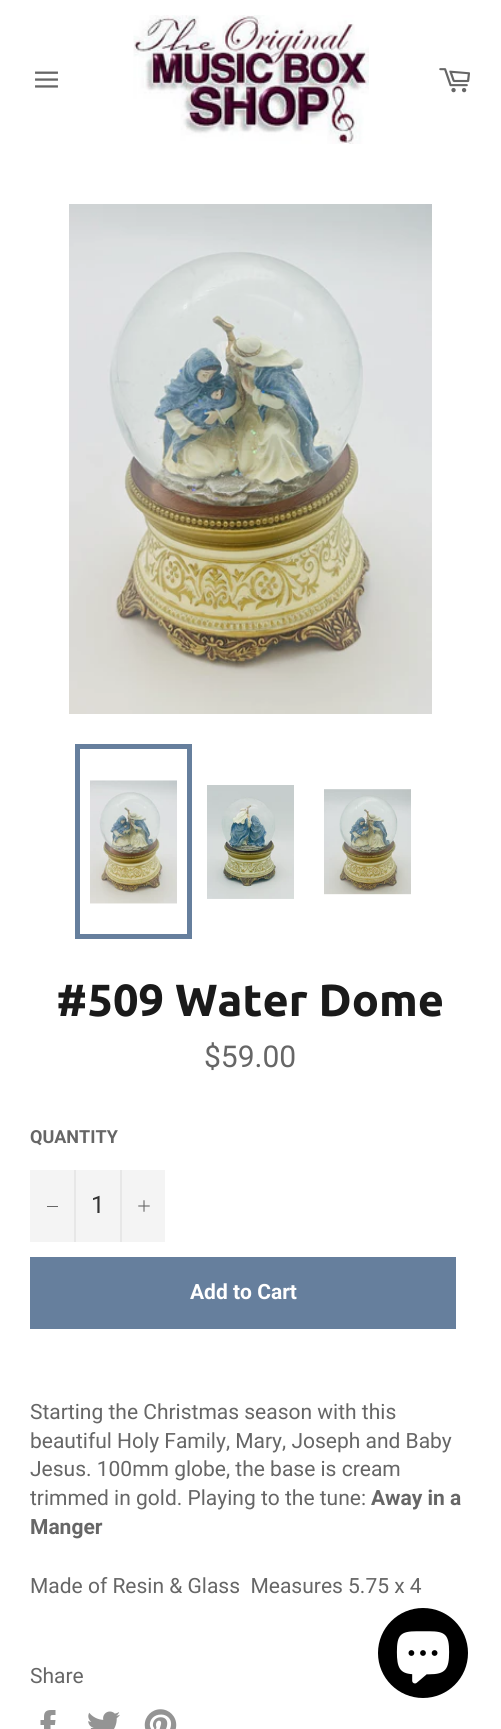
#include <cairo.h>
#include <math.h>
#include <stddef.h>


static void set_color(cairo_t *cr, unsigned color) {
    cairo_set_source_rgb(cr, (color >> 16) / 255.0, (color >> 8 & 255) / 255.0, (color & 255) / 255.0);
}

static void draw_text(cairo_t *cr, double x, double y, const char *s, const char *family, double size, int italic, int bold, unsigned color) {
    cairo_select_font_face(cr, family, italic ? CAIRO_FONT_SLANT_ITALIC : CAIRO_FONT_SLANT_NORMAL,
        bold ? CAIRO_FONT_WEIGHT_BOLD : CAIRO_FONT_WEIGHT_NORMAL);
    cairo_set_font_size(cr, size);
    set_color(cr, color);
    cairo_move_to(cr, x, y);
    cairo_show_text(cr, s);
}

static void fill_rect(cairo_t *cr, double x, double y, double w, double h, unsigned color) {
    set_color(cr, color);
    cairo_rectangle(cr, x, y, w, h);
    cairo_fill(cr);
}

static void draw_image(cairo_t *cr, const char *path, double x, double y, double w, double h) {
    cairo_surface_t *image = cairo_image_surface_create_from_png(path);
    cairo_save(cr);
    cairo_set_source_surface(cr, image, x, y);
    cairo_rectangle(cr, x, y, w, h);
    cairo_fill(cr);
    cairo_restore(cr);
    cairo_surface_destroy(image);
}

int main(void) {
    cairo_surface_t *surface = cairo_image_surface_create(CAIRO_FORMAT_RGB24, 501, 1729);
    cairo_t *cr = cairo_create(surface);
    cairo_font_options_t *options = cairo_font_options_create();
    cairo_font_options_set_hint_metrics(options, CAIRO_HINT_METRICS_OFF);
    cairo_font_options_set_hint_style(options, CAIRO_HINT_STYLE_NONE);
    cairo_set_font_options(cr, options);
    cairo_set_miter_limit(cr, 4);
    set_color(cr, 0xFFFFFF);
    cairo_paint(cr);
    draw_image(cr, "assets/img1.png", 35, 71, 23, 17);
    draw_image(cr, "assets/img2.png", 133, 15, 236, 129);
    draw_image(cr, "assets/img3.png", 439, 68, 31, 25);
    draw_image(cr, "assets/img4.png", 69, 204, 363, 510);
    draw_image(cr, "assets/img5.png", 90, 780, 87, 124);
    cairo_rectangle(cr, 77.5, 746.5, 112, 190);
    set_color(cr, 0x667F9D);
    cairo_set_line_width(cr, 5);
    cairo_stroke(cr);
    draw_image(cr, "assets/img6.png", 207, 785, 87, 114);
    draw_image(cr, "assets/img7.png", 324, 789, 87, 106);
    draw_text(cr, 56, 1016, "#509 Water Dome", "Ubuntu", 45, 0, 1, 0x1A1A1A);
    draw_text(cr, 204, 1067, "$59.00", "Roboto", 30, 0, 0, 0x666666);
    draw_text(cr, 30, 1143, "QUANTITY", "Roboto", 18, 0, 1, 0x666666);
    fill_rect(cr, 30, 1170, 135, 72, 0xF4F4F4);
    fill_rect(cr, 74, 1170, 2, 72, 0xE7E7E7);
    fill_rect(cr, 47, 1206, 11, 1, 0x666666);
    draw_text(cr, 91, 1213, "1", "Roboto", 24, 0, 0, 0x333333);
    fill_rect(cr, 120, 1170, 2, 72, 0xE7E7E7);
    draw_image(cr, "assets/img8.png", 138, 1200, 12, 12);
    fill_rect(cr, 30, 1257, 426, 72, 0x667F9D);
    draw_text(cr, 190, 1299, "Add to Cart", "Roboto", 21, 0, 1, 0xFFFFFF);
    draw_text(cr, 30, 1419, "Starting the Christmas season with this", "Roboto", 21, 0, 0, 0x666666);
    draw_text(cr, 30, 1448, "beautiful Holy Family, Mary, Joseph and Baby", "Roboto", 21, 0, 0, 0x666666);
    draw_text(cr, 30, 1476, "Jesus. 100mm globe, the base is cream", "Roboto", 21, 0, 0, 0x666666);
    draw_text(cr, 30, 1505, "trimmed in gold. Playing to the tune:", "Roboto", 21, 0, 0, 0x666666);
    draw_text(cr, 371, 1505, "Away in a", "Roboto", 21, 0, 1, 0x666666);
    draw_text(cr, 30, 1534, "Manger", "Roboto", 21, 0, 1, 0x666666);
    draw_text(cr, 30, 1593, "Made of Resin & Glass  Measures 5.75 x 4", "Roboto", 21, 0, 0, 0x666666);
    draw_text(cr, 30, 1683, "Share", "Roboto", 21, 0, 0, 0x666666);
    draw_image(cr, "assets/img9.png", 40, 1710, 16, 19);
    draw_image(cr, "assets/img10.png", 88, 1711, 32, 18);
    draw_image(cr, "assets/img11.png", 144, 1709, 33, 20);
    set_color(cr, 0x000000);
    cairo_arc(cr, 423, 1653, 45, 0, 2 * M_PI);
    cairo_fill(cr);
    draw_image(cr, "assets/img12.png", 396, 1631, 54, 53);
    cairo_surface_write_to_png(surface, "output.png");
    cairo_font_options_destroy(options);
    cairo_destroy(cr);
    cairo_surface_destroy(surface);
    return 0;
}
